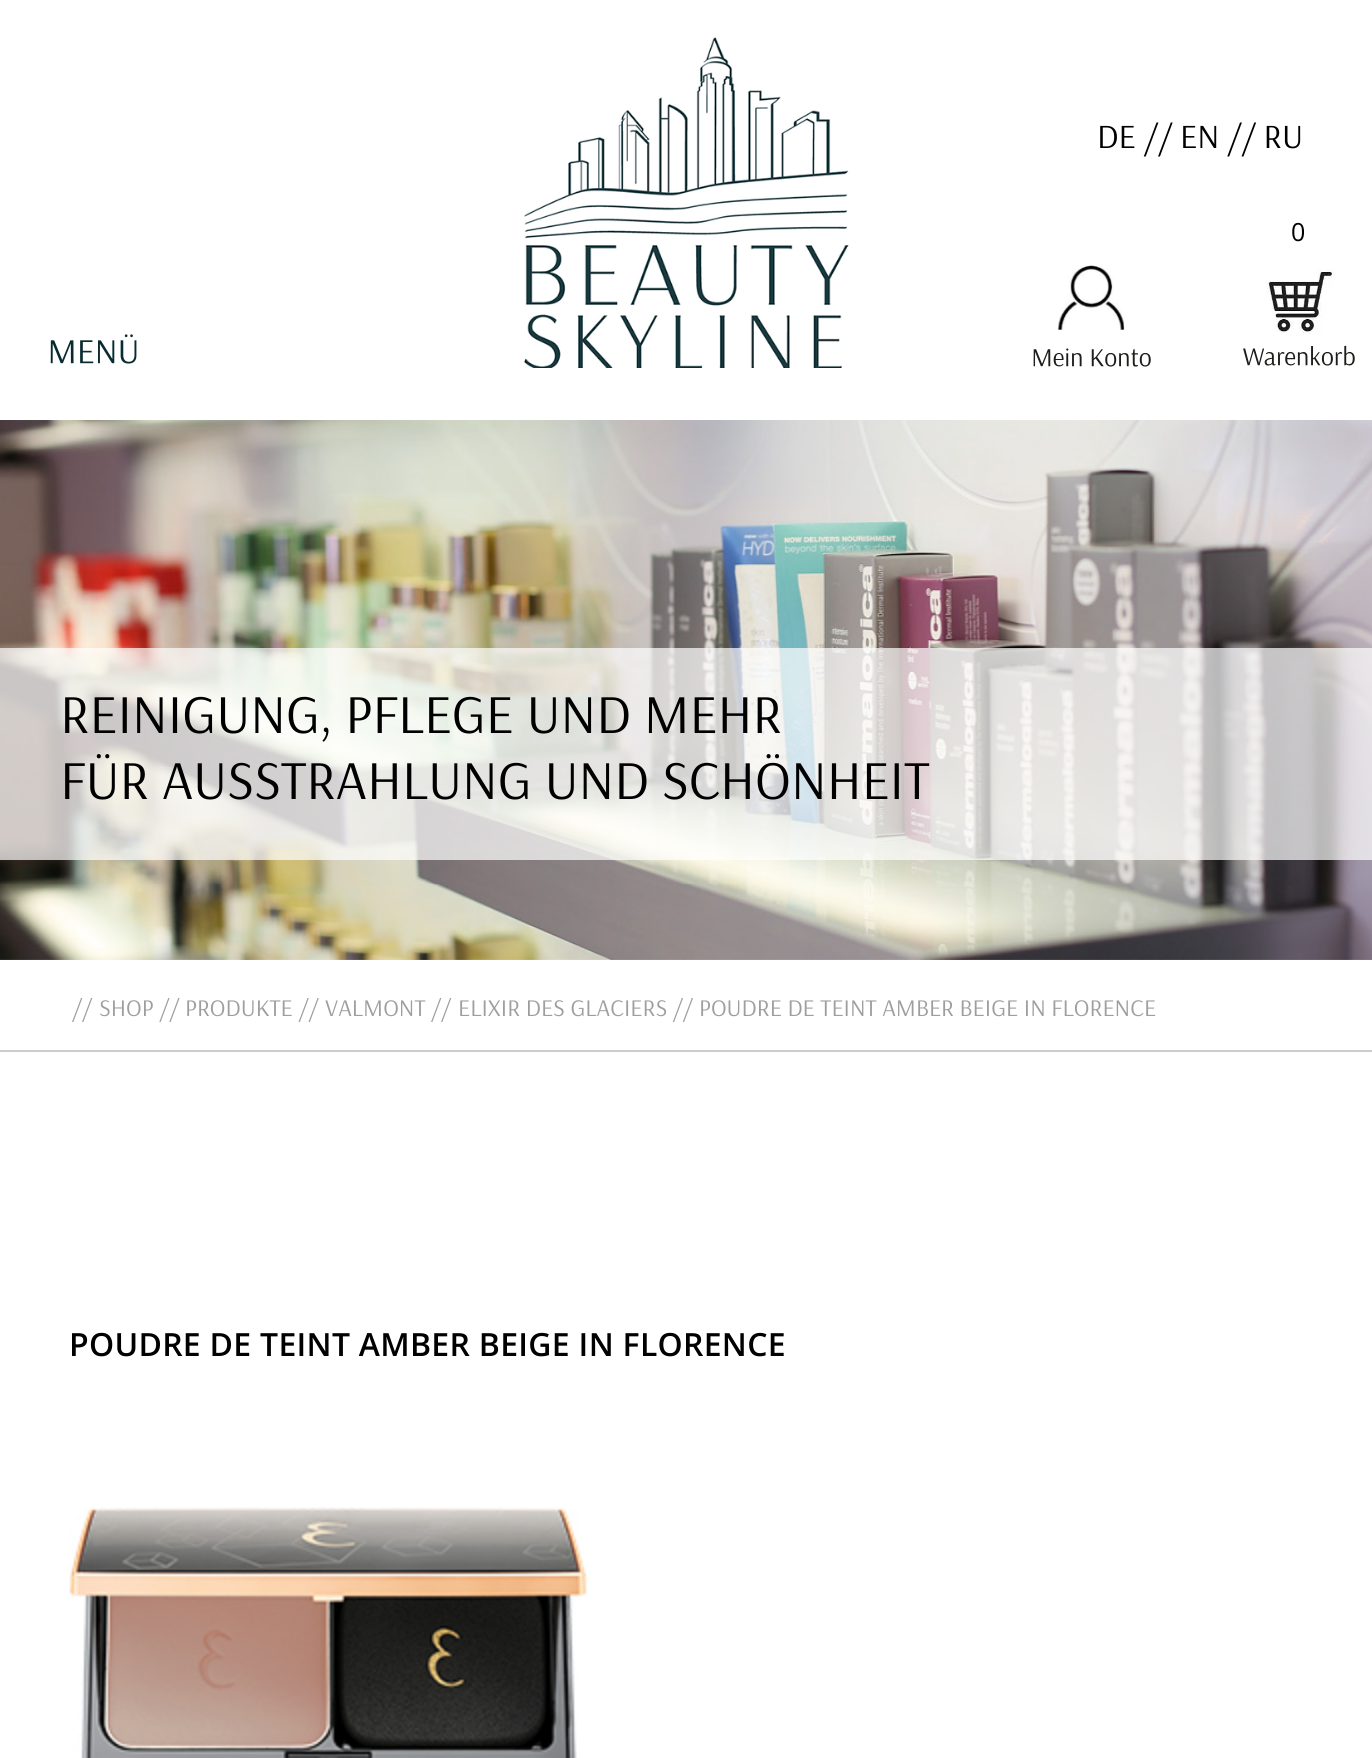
#include <cairo.h>
#include <math.h>
#include <stddef.h>


static void set_color(cairo_t *cr, unsigned color) {
    cairo_set_source_rgb(cr, (color >> 16) / 255.0, (color >> 8 & 255) / 255.0, (color & 255) / 255.0);
}

static void draw_text(cairo_t *cr, double x, double y, const char *s, const char *family, double size, int italic, int bold, unsigned color) {
    cairo_select_font_face(cr, family, italic ? CAIRO_FONT_SLANT_ITALIC : CAIRO_FONT_SLANT_NORMAL,
        bold ? CAIRO_FONT_WEIGHT_BOLD : CAIRO_FONT_WEIGHT_NORMAL);
    cairo_set_font_size(cr, size);
    set_color(cr, color);
    cairo_move_to(cr, x, y);
    cairo_show_text(cr, s);
}

static void draw_spaced(cairo_t *cr, double x, double y, const char *s, double letter, double word) {
    cairo_move_to(cr, x, y);
    while (*s) {
        char ch[5] = {0};
        int n = 0;
        do ch[n++] = *s++; while ((*s & 0xC0) == 0x80);
        cairo_show_text(cr, ch);
        cairo_rel_move_to(cr, letter + word * (*ch == ' '), 0);
    }
}

static void fill_rect(cairo_t *cr, double x, double y, double w, double h, unsigned color) {
    set_color(cr, color);
    cairo_rectangle(cr, x, y, w, h);
    cairo_fill(cr);
}

static void draw_image(cairo_t *cr, const char *path, double x, double y, double w, double h) {
    cairo_surface_t *image = cairo_image_surface_create_from_png(path);
    cairo_save(cr);
    cairo_set_source_surface(cr, image, x, y);
    cairo_rectangle(cr, x, y, w, h);
    cairo_fill(cr);
    cairo_restore(cr);
    cairo_surface_destroy(image);
}

int main(void) {
    cairo_surface_t *surface = cairo_image_surface_create(CAIRO_FORMAT_RGB24, 1372, 1758);
    cairo_t *cr = cairo_create(surface);
    cairo_font_options_t *options = cairo_font_options_create();
    cairo_font_options_set_hint_metrics(options, CAIRO_HINT_METRICS_OFF);
    cairo_font_options_set_hint_style(options, CAIRO_HINT_STYLE_NONE);
    cairo_set_font_options(cr, options);
    cairo_set_miter_limit(cr, 4);
    set_color(cr, 0xFFFFFF);
    cairo_paint(cr);
    draw_image(cr, "assets/img1.png", 524, 37, 325, 331);
    draw_text(cr, 1097, 148, "DE // EN // RU", "Arsenal", 34, 0, 0, 0x000000);
    draw_text(cr, 1291, 241, "0", "Open Sans", 25, 0, 0, 0x000000);
    draw_image(cr, "assets/img2.png", 1243, 269, 112, 97);
    draw_image(cr, "assets/img3.png", 50, 334, 87, 30);
    draw_image(cr, "assets/img4.png", 1033, 265, 118, 102);
    draw_image(cr, "assets/img5.png", 0, 420, 1372, 540);
    cairo_set_source_rgba(cr, 1, 1, 1, 0.7);
    cairo_rectangle(cr, 0, 648, 1372, 212);
    cairo_fill(cr);
    draw_text(cr, 60, 733, "REINIGUNG, PFLEGE UND MEHR", "Arsenal", 54.9, 0, 0, 0x000000);
    draw_text(cr, 60, 799, "FÜR AUSSTRAHLUNG UND SCHÖNHEIT", "Arsenal", 54.9, 0, 0, 0x000000);
    fill_rect(cr, 0, 1050, 1372, 2, 0xCCCCCC);
    draw_text(cr, 72, 1016, "//", "Arsenal", 24, 0, 0, 0xA19D9D);
    draw_text(cr, 99, 1016, "SHOP //", "Arsenal", 24, 0, 0, 0xA19D9D);
    draw_text(cr, 185, 1016, "PRODUKTE //", "Arsenal", 24, 0, 0, 0xA19D9D);
    draw_text(cr, 325, 1016, "VALMONT //", "Arsenal", 24, 0, 0, 0xA19D9D);
    draw_text(cr, 458, 1016, "ELIXIR DES GLACIERS //", "Arsenal", 24, 0, 0, 0xA19D9D);
    draw_text(cr, 699, 1016, "POUDRE DE TEINT AMBER BEIGE IN FLORENCE", "Arsenal", 24, 0, 0, 0xA19D9D);
    cairo_select_font_face(cr, "Open Sans SemiBold", CAIRO_FONT_SLANT_NORMAL, CAIRO_FONT_WEIGHT_NORMAL);
    cairo_set_font_size(cr, 31.95);
    set_color(cr, 0x000000);
    draw_spaced(cr, 69, 1356, "POUDRE DE TEINT AMBER BEIGE IN FLORENCE", 0.3, 0);
    draw_image(cr, "assets/img6.png", 69, 1507, 518, 251);
    cairo_surface_write_to_png(surface, "output.png");
    cairo_font_options_destroy(options);
    cairo_destroy(cr);
    cairo_surface_destroy(surface);
    return 0;
}
